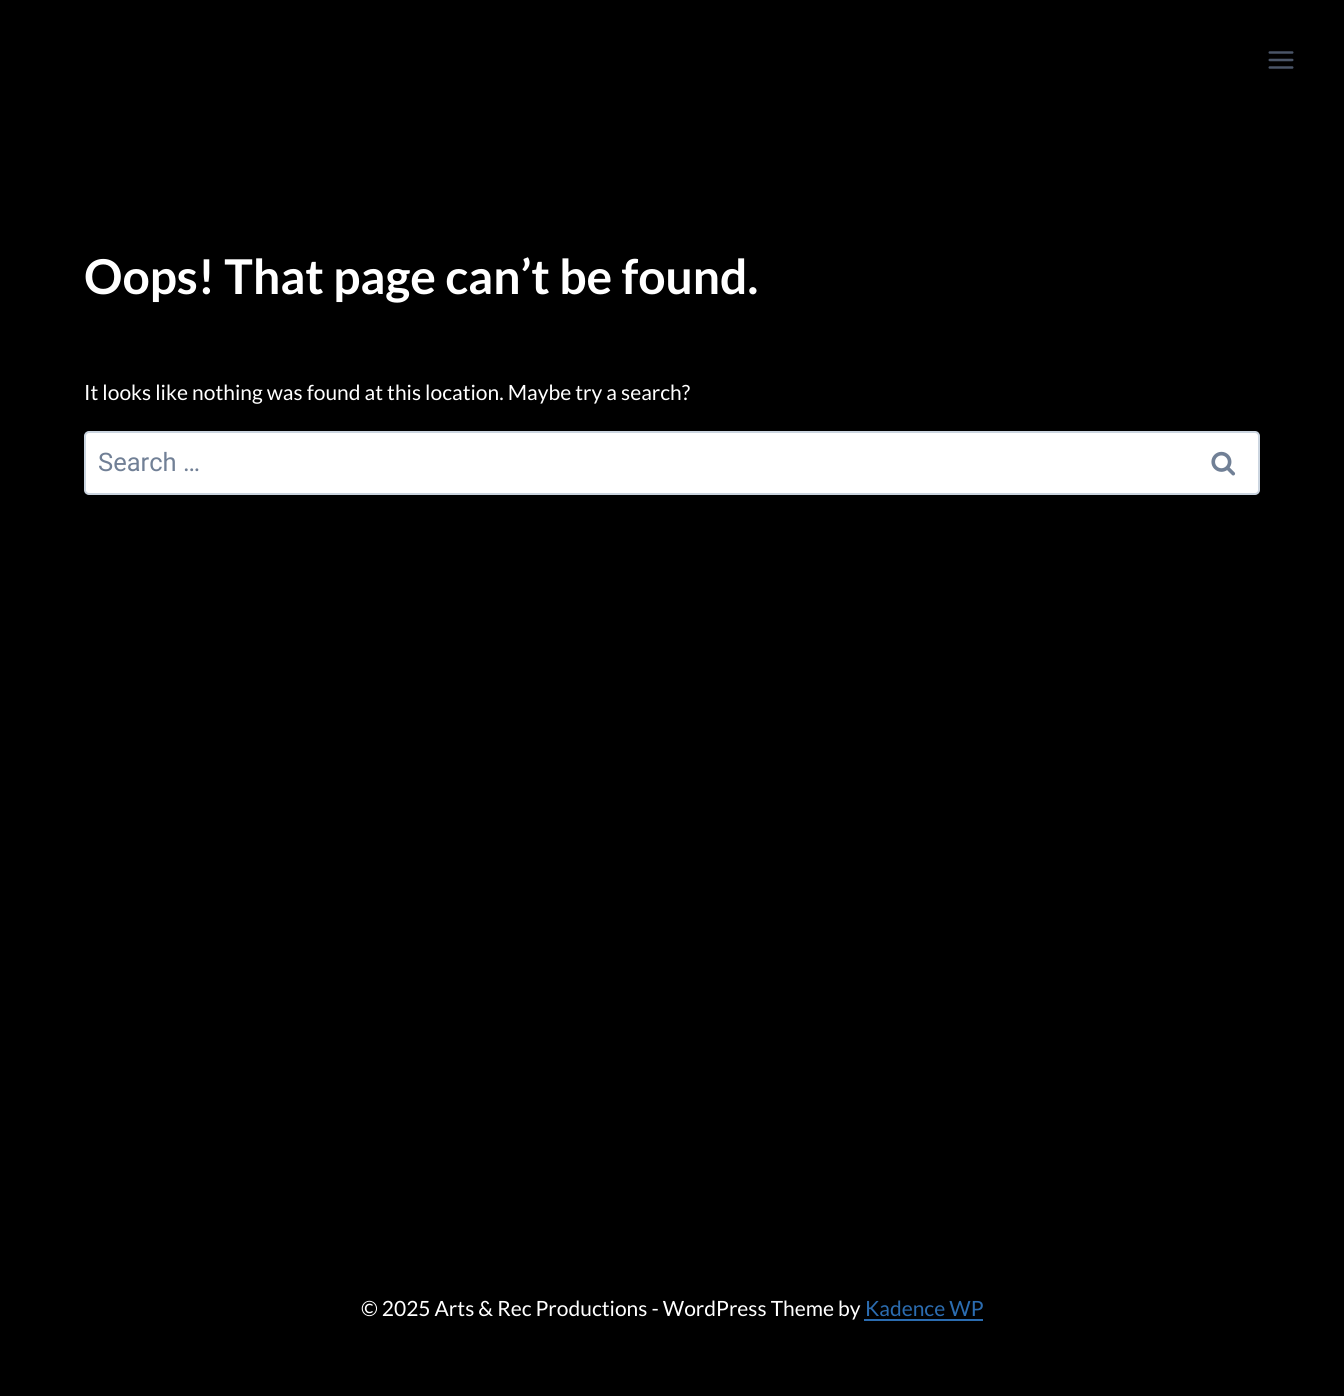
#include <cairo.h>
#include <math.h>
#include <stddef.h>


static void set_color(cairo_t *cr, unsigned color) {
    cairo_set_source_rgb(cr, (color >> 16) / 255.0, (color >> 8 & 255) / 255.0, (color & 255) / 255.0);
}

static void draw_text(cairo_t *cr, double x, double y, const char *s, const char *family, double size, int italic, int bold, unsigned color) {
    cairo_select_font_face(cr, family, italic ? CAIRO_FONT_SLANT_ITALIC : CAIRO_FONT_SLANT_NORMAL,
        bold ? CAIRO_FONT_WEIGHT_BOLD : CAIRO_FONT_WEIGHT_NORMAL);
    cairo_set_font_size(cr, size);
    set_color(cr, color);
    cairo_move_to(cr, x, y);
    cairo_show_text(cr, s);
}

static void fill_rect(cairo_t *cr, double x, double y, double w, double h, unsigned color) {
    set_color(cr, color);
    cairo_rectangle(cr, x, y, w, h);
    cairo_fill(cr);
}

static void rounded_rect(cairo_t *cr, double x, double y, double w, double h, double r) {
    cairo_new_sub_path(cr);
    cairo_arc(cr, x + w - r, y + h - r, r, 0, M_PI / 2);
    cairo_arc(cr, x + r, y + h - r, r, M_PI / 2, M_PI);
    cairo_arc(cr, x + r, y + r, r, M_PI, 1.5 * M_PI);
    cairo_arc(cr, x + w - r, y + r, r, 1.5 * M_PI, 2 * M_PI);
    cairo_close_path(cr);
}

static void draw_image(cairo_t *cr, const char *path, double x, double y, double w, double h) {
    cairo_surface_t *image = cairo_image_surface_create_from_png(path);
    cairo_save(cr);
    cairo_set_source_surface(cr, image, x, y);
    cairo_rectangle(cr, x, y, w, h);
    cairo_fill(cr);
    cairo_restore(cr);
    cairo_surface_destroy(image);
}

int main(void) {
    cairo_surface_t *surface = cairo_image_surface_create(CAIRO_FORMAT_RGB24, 1344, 1396);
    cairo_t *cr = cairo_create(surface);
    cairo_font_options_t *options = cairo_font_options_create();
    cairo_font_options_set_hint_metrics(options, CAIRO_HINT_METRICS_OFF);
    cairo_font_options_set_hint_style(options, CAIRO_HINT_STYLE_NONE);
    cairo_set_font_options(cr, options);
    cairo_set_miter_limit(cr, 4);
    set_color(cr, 0x000000);
    cairo_paint(cr);
    draw_image(cr, "assets/img1.png", 1268, 51, 26, 18);
    draw_text(cr, 84, 294, "Oops! That page can’t be found.", "Lato", 48, 0, 1, 0xFFFFFF);
    draw_text(cr, 84, 400, "It looks like nothing was found at this location. Maybe try a search?", "Lato", 21, 0, 0, 0xFFFFFF);
    rounded_rect(cr, 85, 432, 1174, 62, 4);
    cairo_fill_preserve(cr);
    set_color(cr, 0xCBD5E0);
    cairo_stroke(cr);
    draw_text(cr, 98, 471, "Search …", "Roboto", 25.5, 0, 0, 0x718096);
    draw_image(cr, "assets/img2.png", 1211, 451, 25, 25);
    draw_text(cr, 361, 1316, "© 2025 Arts & Rec Productions - WordPress Theme by", "Lato", 21, 0, 0, 0xFFFFFF);
    draw_text(cr, 865, 1316, "Kadence WP", "Lato", 21, 0, 0, 0x2B6CB0);
    fill_rect(cr, 864, 1319, 119, 2, 0x2B6CB0);
    cairo_surface_write_to_png(surface, "output.png");
    cairo_font_options_destroy(options);
    cairo_destroy(cr);
    cairo_surface_destroy(surface);
    return 0;
}
